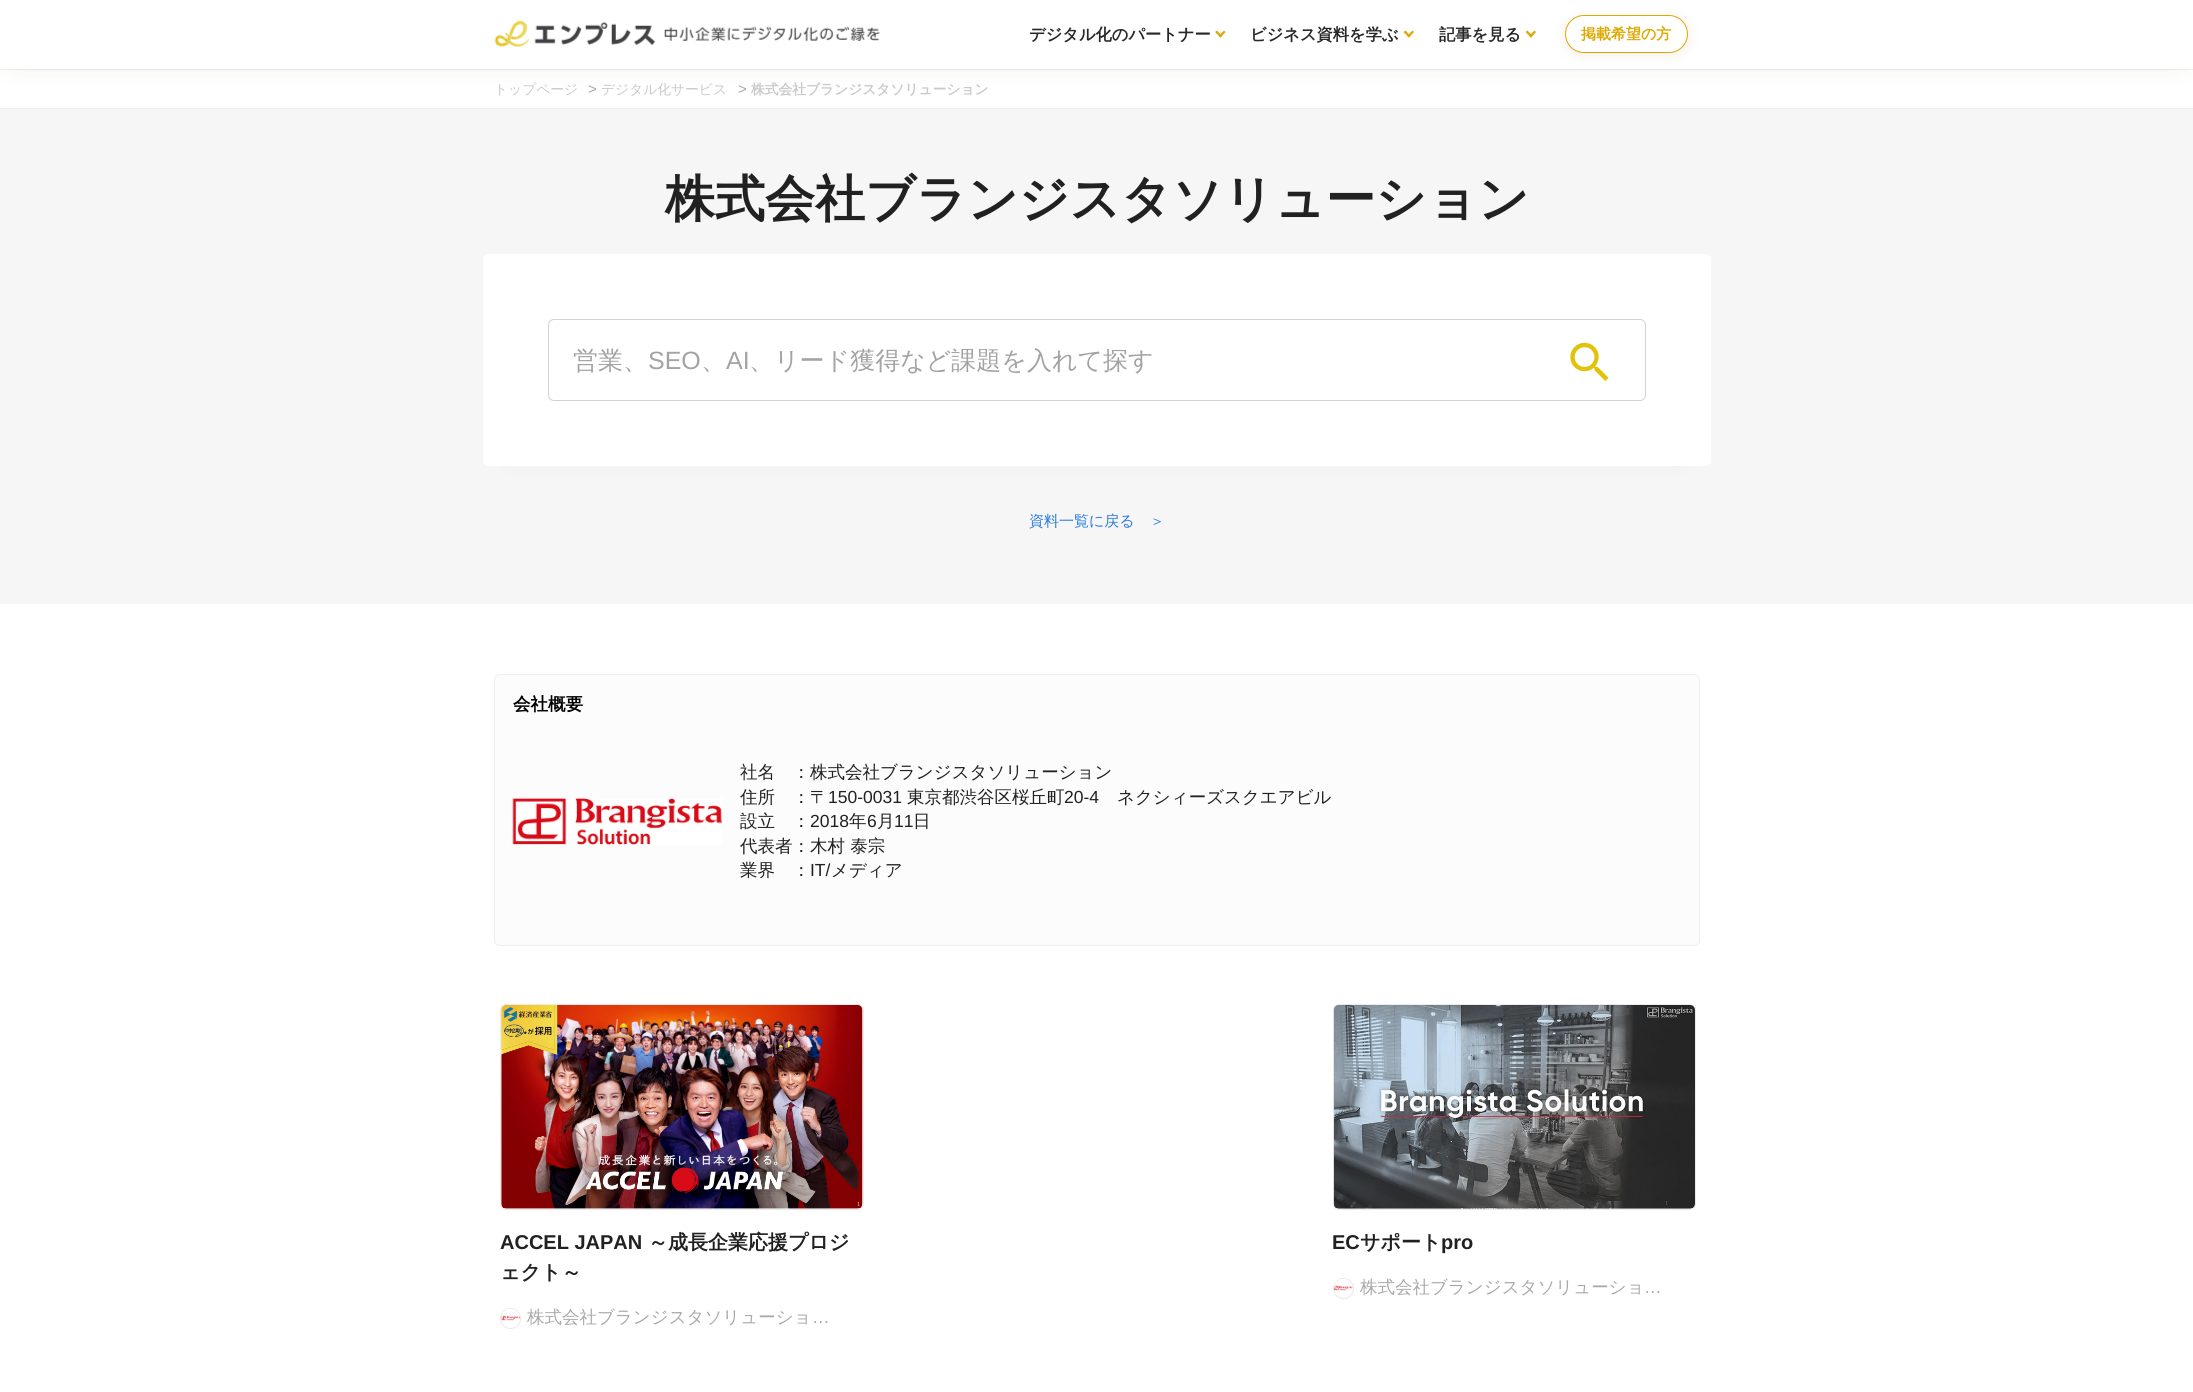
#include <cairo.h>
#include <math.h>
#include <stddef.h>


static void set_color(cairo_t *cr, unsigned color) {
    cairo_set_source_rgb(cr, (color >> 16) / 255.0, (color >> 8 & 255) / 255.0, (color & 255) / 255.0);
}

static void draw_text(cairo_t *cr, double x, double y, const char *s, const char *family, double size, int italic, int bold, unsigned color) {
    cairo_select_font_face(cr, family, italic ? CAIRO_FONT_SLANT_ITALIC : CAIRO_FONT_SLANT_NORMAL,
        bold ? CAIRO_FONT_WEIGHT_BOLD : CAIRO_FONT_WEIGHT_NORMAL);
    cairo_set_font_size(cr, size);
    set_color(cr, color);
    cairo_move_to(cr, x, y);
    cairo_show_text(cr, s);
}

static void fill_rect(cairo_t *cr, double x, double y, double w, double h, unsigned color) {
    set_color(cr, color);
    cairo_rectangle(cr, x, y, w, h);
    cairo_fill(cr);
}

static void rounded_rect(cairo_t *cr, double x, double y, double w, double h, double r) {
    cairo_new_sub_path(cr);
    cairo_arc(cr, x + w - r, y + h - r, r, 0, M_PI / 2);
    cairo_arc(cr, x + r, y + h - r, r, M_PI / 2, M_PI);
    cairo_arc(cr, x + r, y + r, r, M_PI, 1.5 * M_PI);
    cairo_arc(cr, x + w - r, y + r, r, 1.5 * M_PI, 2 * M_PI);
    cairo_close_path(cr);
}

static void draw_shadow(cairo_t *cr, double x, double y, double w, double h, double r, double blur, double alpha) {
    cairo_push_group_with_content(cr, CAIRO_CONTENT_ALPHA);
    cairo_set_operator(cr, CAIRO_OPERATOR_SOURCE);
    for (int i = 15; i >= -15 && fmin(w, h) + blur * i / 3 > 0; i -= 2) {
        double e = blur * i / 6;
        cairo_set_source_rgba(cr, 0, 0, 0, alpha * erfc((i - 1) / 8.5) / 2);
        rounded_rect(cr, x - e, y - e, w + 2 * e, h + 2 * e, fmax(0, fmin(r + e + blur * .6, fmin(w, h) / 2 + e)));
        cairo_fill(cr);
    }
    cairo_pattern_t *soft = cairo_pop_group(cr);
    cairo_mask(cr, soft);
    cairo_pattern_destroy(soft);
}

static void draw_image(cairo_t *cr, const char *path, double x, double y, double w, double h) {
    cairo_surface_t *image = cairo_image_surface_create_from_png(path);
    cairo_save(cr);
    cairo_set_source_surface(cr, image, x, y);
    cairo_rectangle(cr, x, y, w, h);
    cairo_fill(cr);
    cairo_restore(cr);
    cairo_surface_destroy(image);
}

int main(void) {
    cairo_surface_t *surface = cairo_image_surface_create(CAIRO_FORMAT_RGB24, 2193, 1392);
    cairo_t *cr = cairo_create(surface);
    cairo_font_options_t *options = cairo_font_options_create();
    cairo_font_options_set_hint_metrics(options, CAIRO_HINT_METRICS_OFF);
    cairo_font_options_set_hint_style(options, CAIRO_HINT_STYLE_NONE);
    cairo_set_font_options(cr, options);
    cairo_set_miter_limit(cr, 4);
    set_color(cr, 0xFFFFFF);
    cairo_paint(cr);
    fill_rect(cr, 0, 69, 2193, 1, 0xEEEEEE);
    set_color(cr, 0x4D471A);
    draw_shadow(cr, 18, 18, 2158, 33, 0, 17.5, 0.26);
    fill_rect(cr, 0, 0, 2193, 69, 0xFFFFFF);
    draw_image(cr, "assets/img1.png", 494, 20, 386, 27);
    draw_text(cr, 1029, 40, "デジタル化のパートナー", "WenQuanYi Zen Hei", 16.25, 0, 1, 0x282828);
    set_color(cr, 0xDFA700);
    cairo_new_path(cr);
    cairo_move_to(cr, 1224, 30.5);
    cairo_line_to(cr, 1225.5, 32);
    cairo_line_to(cr, 1220.5, 37.5);
    cairo_line_to(cr, 1218.5, 36);
    cairo_close_path(cr);
    cairo_fill(cr);
    cairo_new_path(cr);
    cairo_move_to(cr, 1217, 30.5);
    cairo_line_to(cr, 1222, 36);
    cairo_line_to(cr, 1220.5, 37.5);
    cairo_line_to(cr, 1215, 32);
    cairo_close_path(cr);
    cairo_fill(cr);
    draw_text(cr, 1250, 40, "ビジネス資料を学ぶ", "WenQuanYi Zen Hei", 16.25, 0, 1, 0x282828);
    set_color(cr, 0xDFA700);
    cairo_new_path(cr);
    cairo_move_to(cr, 1412.5, 30.5);
    cairo_line_to(cr, 1414, 32);
    cairo_line_to(cr, 1409, 37.5);
    cairo_line_to(cr, 1407, 36);
    cairo_close_path(cr);
    cairo_fill(cr);
    cairo_new_path(cr);
    cairo_move_to(cr, 1405.5, 30.5);
    cairo_line_to(cr, 1410.5, 36);
    cairo_line_to(cr, 1409, 37.5);
    cairo_line_to(cr, 1403.5, 32);
    cairo_close_path(cr);
    cairo_fill(cr);
    draw_text(cr, 1439, 40, "記事を見る", "WenQuanYi Zen Hei", 16.25, 0, 1, 0x282828);
    set_color(cr, 0xDFA700);
    cairo_new_path(cr);
    cairo_move_to(cr, 1534.5, 30.5);
    cairo_line_to(cr, 1536, 32);
    cairo_line_to(cr, 1531, 37.5);
    cairo_line_to(cr, 1529, 36);
    cairo_close_path(cr);
    cairo_fill(cr);
    cairo_new_path(cr);
    cairo_move_to(cr, 1527.5, 30.5);
    cairo_line_to(cr, 1532.5, 36);
    cairo_line_to(cr, 1531, 37.5);
    cairo_line_to(cr, 1525.5, 32);
    cairo_close_path(cr);
    cairo_fill(cr);
    set_color(cr, 0x9A4C0B);
    draw_shadow(cr, 1565, 18, 123, 37, 18.5, 6, 0.1);
    set_color(cr, 0xFFFFFF);
    rounded_rect(cr, 1565.5, 15.5, 122, 37, 18.5);
    cairo_fill_preserve(cr);
    set_color(cr, 0xDFA700);
    cairo_set_line_width(cr, 1);
    cairo_stroke(cr);
    draw_text(cr, 1581, 39, "掲載希望の方", "WenQuanYi Zen Hei", 15, 0, 1, 0xDFA700);
    fill_rect(cr, 0, 108, 2193, 1, 0xEEEEEE);
    draw_text(cr, 494, 94, "トップページ", "WenQuanYi Zen Hei Medium", 13.75, 0, 0, 0xCACACA);
    draw_text(cr, 588, 94, ">", "Liberation Sans", 15, 0, 0, 0xA9A9A9);
    draw_text(cr, 601, 94, "デジタル化サービス", "WenQuanYi Zen Hei Medium", 13.75, 0, 0, 0xCACACA);
    draw_text(cr, 738, 94, ">", "Liberation Sans", 15, 0, 0, 0xA9A9A9);
    draw_text(cr, 751, 94, "株式会社ブランジスタソリューション", "WenQuanYi Zen Hei", 13.75, 0, 1, 0xCACACA);
    fill_rect(cr, 0, 109, 2193, 495, 0xF6F6F6);
    draw_text(cr, 665, 216, "株式会社ブランジスタソリューション", "WenQuanYi Zen Hei", 50, 0, 1, 0x212121);
    set_color(cr, 0xC1C1C1);
    draw_shadow(cr, 518, 306, 1158, 143, 0, 17.5, 0.33);
    set_color(cr, 0xFFFFFF);
    rounded_rect(cr, 483, 254, 1228, 212, 6);
    cairo_fill(cr);
    rounded_rect(cr, 548.5, 319.5, 1097, 81, 5.5);
    set_color(cr, 0xD3D3D3);
    cairo_stroke(cr);
    draw_text(cr, 573, 369, "営業、", "WenQuanYi Zen Hei Medium", 25, 0, 0, 0xA3A3A3);
    draw_text(cr, 648, 369, "SEO", "Liberation Sans", 25, 0, 0, 0xA3A3A3);
    draw_text(cr, 726, 369, "AI", "Liberation Sans", 25, 0, 0, 0xA3A3A3);
    draw_text(cr, 749, 369, "、リード獲得など課題を入れて探す", "WenQuanYi Zen Hei Medium", 25, 0, 0, 0xA3A3A3);
    draw_text(cr, 701, 369, "、", "WenQuanYi Zen Hei Medium", 25, 0, 0, 0xA3A3A3);
    draw_image(cr, "assets/img2.png", 1570, 342, 39, 39);
    draw_text(cr, 1029, 526, "資料一覧に戻る　＞", "WenQuanYi Zen Hei Medium", 15, 0, 0, 0x2C7BE1);
    set_color(cr, 0xFCFCFC);
    rounded_rect(cr, 494.5, 674.5, 1205, 271, 5.5);
    cairo_fill_preserve(cr);
    set_color(cr, 0xEFEFEF);
    cairo_stroke(cr);
    draw_text(cr, 513, 710, "会社概要", "WenQuanYi Zen Hei", 17.5, 0, 1, 0x000000);
    draw_image(cr, "assets/img3.png", 512, 798, 211, 47);
    draw_text(cr, 740, 778, "社名　：株式会社ブランジスタソリューション", "WenQuanYi Zen Hei Medium", 17.5, 0, 0, 0x212121);
    draw_text(cr, 740, 803, "住所　：〒", "WenQuanYi Zen Hei Medium", 17.5, 0, 0, 0x212121);
    draw_text(cr, 828, 803, "150-0031", "Liberation Sans", 17.5, 0, 0, 0x212121);
    draw_text(cr, 907, 803, "東京都渋谷区桜丘町", "WenQuanYi Zen Hei Medium", 17.5, 0, 0, 0x212121);
    draw_text(cr, 1064, 803, "20-4", "Liberation Sans", 17.5, 0, 0, 0x212121);
    draw_text(cr, 1117, 803, "ネクシィーズスクエアビル", "WenQuanYi Zen Hei Medium", 17.5, 0, 0, 0x212121);
    draw_text(cr, 740, 827, "設立　：", "WenQuanYi Zen Hei Medium", 17.5, 0, 0, 0x212121);
    draw_text(cr, 810, 827, "2018", "Liberation Sans", 17.5, 0, 0, 0x212121);
    draw_text(cr, 849, 827, "年", "WenQuanYi Zen Hei Medium", 17.5, 0, 0, 0x212121);
    draw_text(cr, 867, 827, "6", "Liberation Sans", 17.5, 0, 0, 0x212121);
    draw_text(cr, 877, 827, "月", "WenQuanYi Zen Hei Medium", 17.5, 0, 0, 0x212121);
    draw_text(cr, 894, 827, "11", "Liberation Sans", 17.5, 0, 0, 0x212121);
    draw_text(cr, 913, 827, "日", "WenQuanYi Zen Hei Medium", 17.5, 0, 0, 0x212121);
    draw_text(cr, 740, 852, "代表者：木村 泰宗", "WenQuanYi Zen Hei Medium", 17.5, 0, 0, 0x212121);
    draw_text(cr, 740, 876, "業界　：", "WenQuanYi Zen Hei Medium", 17.5, 0, 0, 0x212121);
    draw_text(cr, 810, 876, "IT/", "Liberation Sans", 17.5, 0, 0, 0x212121);
    draw_text(cr, 831, 876, "メディア", "WenQuanYi Zen Hei Medium", 17.5, 0, 0, 0x212121);
    rounded_rect(cr, 500.5, 1004.5, 363, 205, 5.5);
    set_color(cr, 0xEBEBEB);
    cairo_stroke(cr);
    draw_image(cr, "assets/img4.png", 501, 1005, 362, 204);
    draw_text(cr, 500, 1249, "ACCEL JAPAN", "Liberation Sans", 20, 0, 1, 0x212121);
    draw_text(cr, 648, 1249, "～成長企業応援プロジ", "WenQuanYi Zen Hei", 20, 0, 1, 0x212121);
    draw_text(cr, 500, 1279, "ェクト～", "WenQuanYi Zen Hei", 20, 0, 1, 0x212121);
    cairo_new_path(cr);
    cairo_arc(cr, 510.5, 1318.5, 10, 0, 2 * M_PI);
    set_color(cr, 0xE8E8E8);
    cairo_stroke(cr);
    draw_image(cr, "assets/img5.png", 501, 1309, 19, 13);
    draw_text(cr, 527, 1323, "株式会社ブランジスタソリューショ", "WenQuanYi Zen Hei Medium", 17.5, 0, 0, 0xA9A9A9);
    draw_text(cr, 812, 1323, "…", "Liberation Sans", 17.5, 0, 0, 0xA9A9A9);
    rounded_rect(cr, 1333.5, 1004.5, 362, 205, 5.5);
    set_color(cr, 0xEBEBEB);
    cairo_stroke(cr);
    draw_image(cr, "assets/img6.png", 1333, 1005, 362, 204);
    draw_text(cr, 1332, 1249, "EC", "Liberation Sans", 20, 0, 1, 0x212121);
    draw_text(cr, 1360, 1249, "サポート", "WenQuanYi Zen Hei", 20, 0, 1, 0x212121);
    draw_text(cr, 1441, 1249, "pro", "Liberation Sans", 20, 0, 1, 0x212121);
    cairo_new_path(cr);
    cairo_arc(cr, 1343.5, 1288.5, 10, 0, 2 * M_PI);
    set_color(cr, 0xE8E8E8);
    cairo_stroke(cr);
    draw_image(cr, "assets/img7.png", 1333, 1279, 20, 15);
    draw_text(cr, 1360, 1293, "株式会社ブランジスタソリューショ", "WenQuanYi Zen Hei Medium", 17.5, 0, 0, 0xA9A9A9);
    draw_text(cr, 1644, 1293, "…", "Liberation Sans", 17.5, 0, 0, 0xA9A9A9);
    cairo_surface_write_to_png(surface, "output.png");
    cairo_font_options_destroy(options);
    cairo_destroy(cr);
    cairo_surface_destroy(surface);
    return 0;
}
